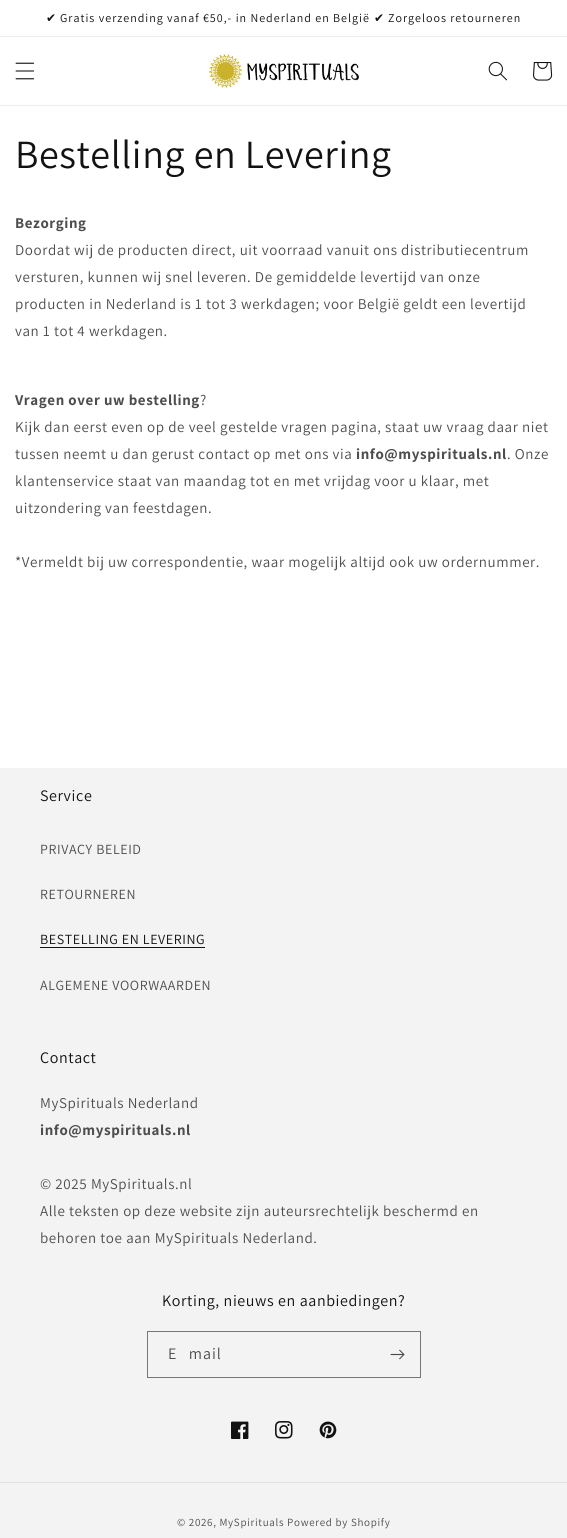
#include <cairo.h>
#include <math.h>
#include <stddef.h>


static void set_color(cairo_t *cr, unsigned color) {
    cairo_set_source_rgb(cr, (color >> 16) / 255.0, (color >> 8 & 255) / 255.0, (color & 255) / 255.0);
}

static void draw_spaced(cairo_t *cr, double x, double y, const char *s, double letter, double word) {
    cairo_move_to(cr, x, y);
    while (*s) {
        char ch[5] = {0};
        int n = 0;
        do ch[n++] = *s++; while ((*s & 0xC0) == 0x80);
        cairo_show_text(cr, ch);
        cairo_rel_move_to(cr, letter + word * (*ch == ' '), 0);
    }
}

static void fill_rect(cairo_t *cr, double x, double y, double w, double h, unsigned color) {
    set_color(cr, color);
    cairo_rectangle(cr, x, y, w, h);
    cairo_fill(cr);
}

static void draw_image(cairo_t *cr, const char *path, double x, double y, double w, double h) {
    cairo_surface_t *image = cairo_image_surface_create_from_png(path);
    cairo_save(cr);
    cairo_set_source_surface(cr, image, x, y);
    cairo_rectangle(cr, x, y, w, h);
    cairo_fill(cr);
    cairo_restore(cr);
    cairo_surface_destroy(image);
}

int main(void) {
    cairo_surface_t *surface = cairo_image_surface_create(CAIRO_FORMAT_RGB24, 567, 1538);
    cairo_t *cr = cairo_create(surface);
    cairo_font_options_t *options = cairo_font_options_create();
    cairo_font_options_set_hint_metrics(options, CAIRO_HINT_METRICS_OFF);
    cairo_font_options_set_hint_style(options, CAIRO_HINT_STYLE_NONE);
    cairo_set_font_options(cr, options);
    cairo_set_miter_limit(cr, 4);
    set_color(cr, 0xFFFFFF);
    cairo_paint(cr);
    fill_rect(cr, 0, 36, 567, 1, 0xECECEC);
    cairo_select_font_face(cr, "DejaVu Sans", CAIRO_FONT_SLANT_NORMAL, CAIRO_FONT_WEIGHT_NORMAL);
    cairo_set_font_size(cr, 12);
    set_color(cr, 0x121212);
    draw_spaced(cr, 46, 22, "✔", 1, 0);
    cairo_select_font_face(cr, "Assistant", CAIRO_FONT_SLANT_NORMAL, CAIRO_FONT_WEIGHT_NORMAL);
    draw_spaced(cr, 60, 22, "Gratis verzending vanaf €50,- in Nederland en België", 1, 0);
    cairo_select_font_face(cr, "DejaVu Sans", CAIRO_FONT_SLANT_NORMAL, CAIRO_FONT_WEIGHT_NORMAL);
    draw_spaced(cr, 374, 22, "✔", 1, 0);
    cairo_select_font_face(cr, "Assistant", CAIRO_FONT_SLANT_NORMAL, CAIRO_FONT_WEIGHT_NORMAL);
    draw_spaced(cr, 388, 22, "Zorgeloos retourneren", 1, 0);
    fill_rect(cr, 0, 105, 567, 1, 0xECECEC);
    draw_image(cr, "assets/img1.png", 15, 62, 20, 18);
    draw_image(cr, "assets/img2.png", 209, 54, 150, 34);
    draw_image(cr, "assets/img3.png", 488, 61, 19, 20);
    draw_image(cr, "assets/img4.png", 533, 62, 20, 19);
    cairo_set_font_size(cr, 40);
    set_color(cr, 0x121212);
    draw_spaced(cr, 15, 168, "Bestelling en Levering", 0.6, 0);
    cairo_select_font_face(cr, "Assistant", CAIRO_FONT_SLANT_NORMAL, CAIRO_FONT_WEIGHT_BOLD);
    cairo_set_font_size(cr, 15);
    set_color(cr, 0x4D4D4D);
    draw_spaced(cr, 15, 228, "Bezorging", 0.6, 0);
    cairo_select_font_face(cr, "Assistant", CAIRO_FONT_SLANT_NORMAL, CAIRO_FONT_WEIGHT_NORMAL);
    draw_spaced(cr, 15, 255, "Doordat wij de producten direct, uit voorraad vanuit ons distributiecentrum", 0.6, 0);
    draw_spaced(cr, 15, 282, "versturen, kunnen wij snel leveren. De gemiddelde levertijd van onze", 0.6, 0);
    draw_spaced(cr, 15, 309, "producten in Nederland is 1 tot 3 werkdagen; voor België geldt een levertijd", 0.6, 0);
    draw_spaced(cr, 15, 336, "van 1 tot 4 werkdagen.", 0.6, 0);
    cairo_select_font_face(cr, "Assistant", CAIRO_FONT_SLANT_NORMAL, CAIRO_FONT_WEIGHT_BOLD);
    draw_spaced(cr, 15, 405, "Vragen over uw bestelling", 0.6, 0);
    cairo_select_font_face(cr, "Assistant", CAIRO_FONT_SLANT_NORMAL, CAIRO_FONT_WEIGHT_NORMAL);
    draw_spaced(cr, 200, 405, "?", 0.6, 0);
    draw_spaced(cr, 15, 432, "Kijk dan eerst even op de veel gestelde vragen pagina, staat uw vraag daar niet", 0.6, 0);
    draw_spaced(cr, 15, 459, "tussen neemt u dan gerust contact op met ons via", 0.6, 0);
    cairo_select_font_face(cr, "Assistant", CAIRO_FONT_SLANT_NORMAL, CAIRO_FONT_WEIGHT_BOLD);
    draw_spaced(cr, 356, 459, "info@myspirituals.nl", 0.6, 0);
    cairo_select_font_face(cr, "Assistant", CAIRO_FONT_SLANT_NORMAL, CAIRO_FONT_WEIGHT_NORMAL);
    draw_spaced(cr, 507, 459, ". Onze", 0.6, 0);
    draw_spaced(cr, 15, 486, "klantenservice staat van maandag tot en met vrijdag voor u klaar, met", 0.6, 0);
    draw_spaced(cr, 15, 513, "uitzondering van feestdagen.", 0.6, 0);
    draw_spaced(cr, 15, 567, "*Vermeldt bij uw correspondentie, waar mogelijk altijd ook uw ordernummer.", 0.6, 0);
    fill_rect(cr, 0, 768, 567, 770, 0xF3F3F3);
    cairo_set_font_size(cr, 16);
    set_color(cr, 0x121212);
    draw_spaced(cr, 40, 801, "Service", 0.6, 0);
    cairo_set_font_size(cr, 14);
    set_color(cr, 0x4D4D4D);
    draw_spaced(cr, 40, 854, "PRIVACY BELEID", 0.6, 0);
    draw_spaced(cr, 40, 899, "RETOURNEREN", 0.6, 0);
    set_color(cr, 0x121212);
    draw_spaced(cr, 40, 944, "BESTELLING EN LEVERING", 0.6, 0);
    fill_rect(cr, 40, 947, 165, 1, 0x121212);
    set_color(cr, 0x4D4D4D);
    draw_spaced(cr, 40, 990, "ALGEMENE VOORWAARDEN", 0.6, 0);
    cairo_set_font_size(cr, 16);
    set_color(cr, 0x121212);
    draw_spaced(cr, 40, 1063, "Contact", 0.6, 0);
    cairo_set_font_size(cr, 15);
    set_color(cr, 0x4D4D4D);
    draw_spaced(cr, 40, 1108, "MySpirituals Nederland", 0.6, 0);
    cairo_select_font_face(cr, "Assistant", CAIRO_FONT_SLANT_NORMAL, CAIRO_FONT_WEIGHT_BOLD);
    draw_spaced(cr, 40, 1135, "info@myspirituals.nl", 0.6, 0);
    cairo_select_font_face(cr, "Assistant", CAIRO_FONT_SLANT_NORMAL, CAIRO_FONT_WEIGHT_NORMAL);
    draw_spaced(cr, 40, 1189, "© 2025 MySpirituals.nl", 0.6, 0);
    draw_spaced(cr, 40, 1216, "Alle teksten op deze website zijn auteursrechtelijk beschermd en", 0.6, 0);
    draw_spaced(cr, 40, 1243, "behoren toe aan MySpirituals Nederland.", 0.6, 0);
    cairo_set_font_size(cr, 16);
    set_color(cr, 0x121212);
    draw_spaced(cr, 162, 1306, "Korting, nieuws en aanbiedingen?", 0.6, 0);
    cairo_rectangle(cr, 147.5, 1331.5, 273, 46);
    set_color(cr, 0x777777);
    cairo_set_line_width(cr, 1);
    cairo_stroke(cr);
    set_color(cr, 0x4D4D4D);
    draw_spaced(cr, 168, 1359, "E‑mail", 1, 0);
    draw_image(cr, "assets/img5.png", 390, 1349, 15, 11);
    draw_image(cr, "assets/img6.png", 231, 1421, 18, 18);
    draw_image(cr, "assets/img7.png", 275, 1421, 18, 18);
    draw_image(cr, "assets/img8.png", 319, 1421, 18, 18);
    fill_rect(cr, 0, 1482, 567, 1, 0xE1E1E1);
    cairo_set_font_size(cr, 11);
    set_color(cr, 0x4D4D4D);
    draw_spaced(cr, 177, 1526, "© 2026, MySpirituals Powered by Shopify", 0.7, 0);
    cairo_surface_write_to_png(surface, "output.png");
    cairo_font_options_destroy(options);
    cairo_destroy(cr);
    cairo_surface_destroy(surface);
    return 0;
}
